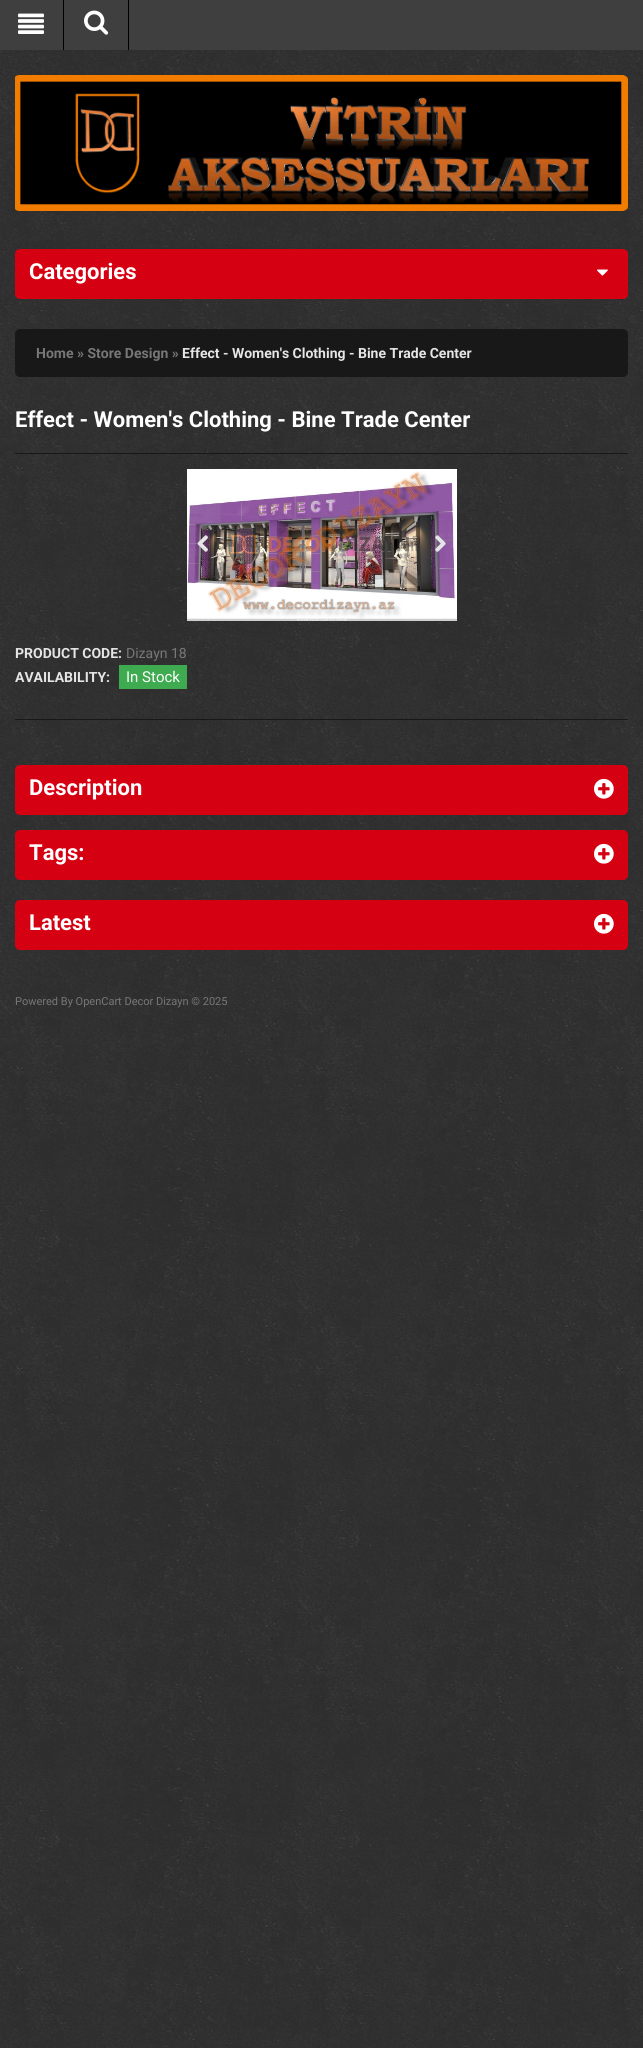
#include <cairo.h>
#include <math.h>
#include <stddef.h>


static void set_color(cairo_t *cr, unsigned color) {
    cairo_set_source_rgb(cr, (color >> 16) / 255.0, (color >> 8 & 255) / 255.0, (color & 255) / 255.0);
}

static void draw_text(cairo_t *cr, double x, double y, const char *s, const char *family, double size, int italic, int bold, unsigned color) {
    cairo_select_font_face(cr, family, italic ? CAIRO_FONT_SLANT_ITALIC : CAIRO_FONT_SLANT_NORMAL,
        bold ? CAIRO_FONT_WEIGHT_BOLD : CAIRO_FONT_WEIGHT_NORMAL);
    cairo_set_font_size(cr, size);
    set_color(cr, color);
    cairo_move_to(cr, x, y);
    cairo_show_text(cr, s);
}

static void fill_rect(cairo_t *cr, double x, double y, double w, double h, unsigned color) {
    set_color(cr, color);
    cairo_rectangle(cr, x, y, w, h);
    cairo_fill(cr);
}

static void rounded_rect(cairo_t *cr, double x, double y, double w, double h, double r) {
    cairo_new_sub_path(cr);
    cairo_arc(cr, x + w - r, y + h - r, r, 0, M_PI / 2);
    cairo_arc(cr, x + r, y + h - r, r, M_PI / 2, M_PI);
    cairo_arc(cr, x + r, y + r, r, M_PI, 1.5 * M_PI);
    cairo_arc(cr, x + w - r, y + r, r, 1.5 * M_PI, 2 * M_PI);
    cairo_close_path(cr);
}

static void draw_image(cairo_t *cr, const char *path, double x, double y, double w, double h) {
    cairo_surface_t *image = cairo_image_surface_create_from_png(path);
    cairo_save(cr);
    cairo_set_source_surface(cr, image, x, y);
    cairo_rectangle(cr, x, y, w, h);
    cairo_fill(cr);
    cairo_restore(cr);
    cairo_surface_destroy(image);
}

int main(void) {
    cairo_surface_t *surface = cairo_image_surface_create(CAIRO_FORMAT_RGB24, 643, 2048);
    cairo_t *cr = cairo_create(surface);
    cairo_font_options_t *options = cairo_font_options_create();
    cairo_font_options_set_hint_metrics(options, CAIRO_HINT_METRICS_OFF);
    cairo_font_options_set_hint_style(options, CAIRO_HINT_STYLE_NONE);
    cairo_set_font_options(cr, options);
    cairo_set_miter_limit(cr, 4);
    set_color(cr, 0xFFFFFF);
    cairo_paint(cr);
    draw_image(cr, "assets/img1.png", 0, 50, 643, 1998);
    fill_rect(cr, 0, 0, 643, 50, 0x3F3F3F);
    fill_rect(cr, 63, 0, 1, 50, 0x000000);
    draw_image(cr, "assets/img2.png", 18, 13, 26, 21);
    fill_rect(cr, 128, 0, 1, 50, 0x000000);
    draw_image(cr, "assets/img3.png", 84, 10, 25, 25);
    draw_image(cr, "assets/img4.png", 15, 75, 613, 136);
    set_color(cr, 0xD60013);
    rounded_rect(cr, 15.5, 249.5, 612, 49, 4.5);
    cairo_fill_preserve(cr);
    cairo_set_line_width(cr, 1);
    cairo_stroke(cr);
    draw_text(cr, 29, 279, "Categories", "Roboto", 22, 0, 1, 0xFFFFFF);
    draw_image(cr, "assets/img5.png", 597, 269, 11, 7);
    set_color(cr, 0x181818);
    rounded_rect(cr, 15.5, 329.5, 612, 47, 4.5);
    cairo_fill_preserve(cr);
    cairo_stroke(cr);
    draw_text(cr, 36, 358, "Home » Store Design »", "Roboto", 14, 0, 1, 0x777777);
    draw_text(cr, 182, 358, "Effect - Women's Clothing - Bine Trade Center", "Roboto", 14, 0, 1, 0xE5E5E5);
    fill_rect(cr, 15, 453, 613, 1, 0x181818);
    draw_text(cr, 15, 427, "Effect - Women's Clothing - Bine Trade Center", "Roboto", 22, 0, 1, 0xFFFFFF);
    draw_image(cr, "assets/img6.png", 187, 469, 270, 152);
    draw_image(cr, "assets/img7.png", 197, 535, 11, 17);
    draw_image(cr, "assets/img8.png", 435, 535, 11, 17);
    draw_text(cr, 15, 658, "PRODUCT CODE:", "Roboto", 14, 0, 1, 0xE5E5E5);
    draw_text(cr, 126, 658, "Dizayn 18", "Roboto", 14, 0, 0, 0x777777);
    draw_text(cr, 15, 682, "AVAILABILITY:", "Roboto", 14, 0, 1, 0xE5E5E5);
    fill_rect(cr, 119, 665, 68, 24, 0x3EAB50);
    draw_text(cr, 126, 682, "In Stock", "Roboto", 15, 0, 0, 0xFFFFFF);
    fill_rect(cr, 15, 719, 613, 1, 0x181818);
    set_color(cr, 0xD60013);
    rounded_rect(cr, 15.5, 765.5, 612, 49, 4.5);
    cairo_fill_preserve(cr);
    cairo_stroke(cr);
    draw_text(cr, 29, 795, "Description", "Roboto", 22, 0, 1, 0xFFFFFF);
    draw_image(cr, "assets/img9.png", 594, 778, 20, 21);
    set_color(cr, 0xD60013);
    rounded_rect(cr, 15.5, 830.5, 612, 49, 4.5);
    cairo_fill_preserve(cr);
    cairo_stroke(cr);
    draw_text(cr, 29, 860, "Tags:", "Roboto", 22, 0, 1, 0xFFFFFF);
    draw_image(cr, "assets/img9.png", 594, 843, 20, 21);
    set_color(cr, 0xD60013);
    rounded_rect(cr, 15.5, 900.5, 612, 49, 4.5);
    cairo_fill_preserve(cr);
    cairo_stroke(cr);
    draw_text(cr, 29, 930, "Latest", "Roboto", 22, 0, 1, 0xFFFFFF);
    draw_image(cr, "assets/img9.png", 594, 913, 20, 21);
    draw_text(cr, 15, 1005, "Powered By OpenCart Decor Dizayn © 2025", "Roboto", 11, 0, 0, 0x777777);
    cairo_surface_write_to_png(surface, "output.png");
    cairo_font_options_destroy(options);
    cairo_destroy(cr);
    cairo_surface_destroy(surface);
    return 0;
}
